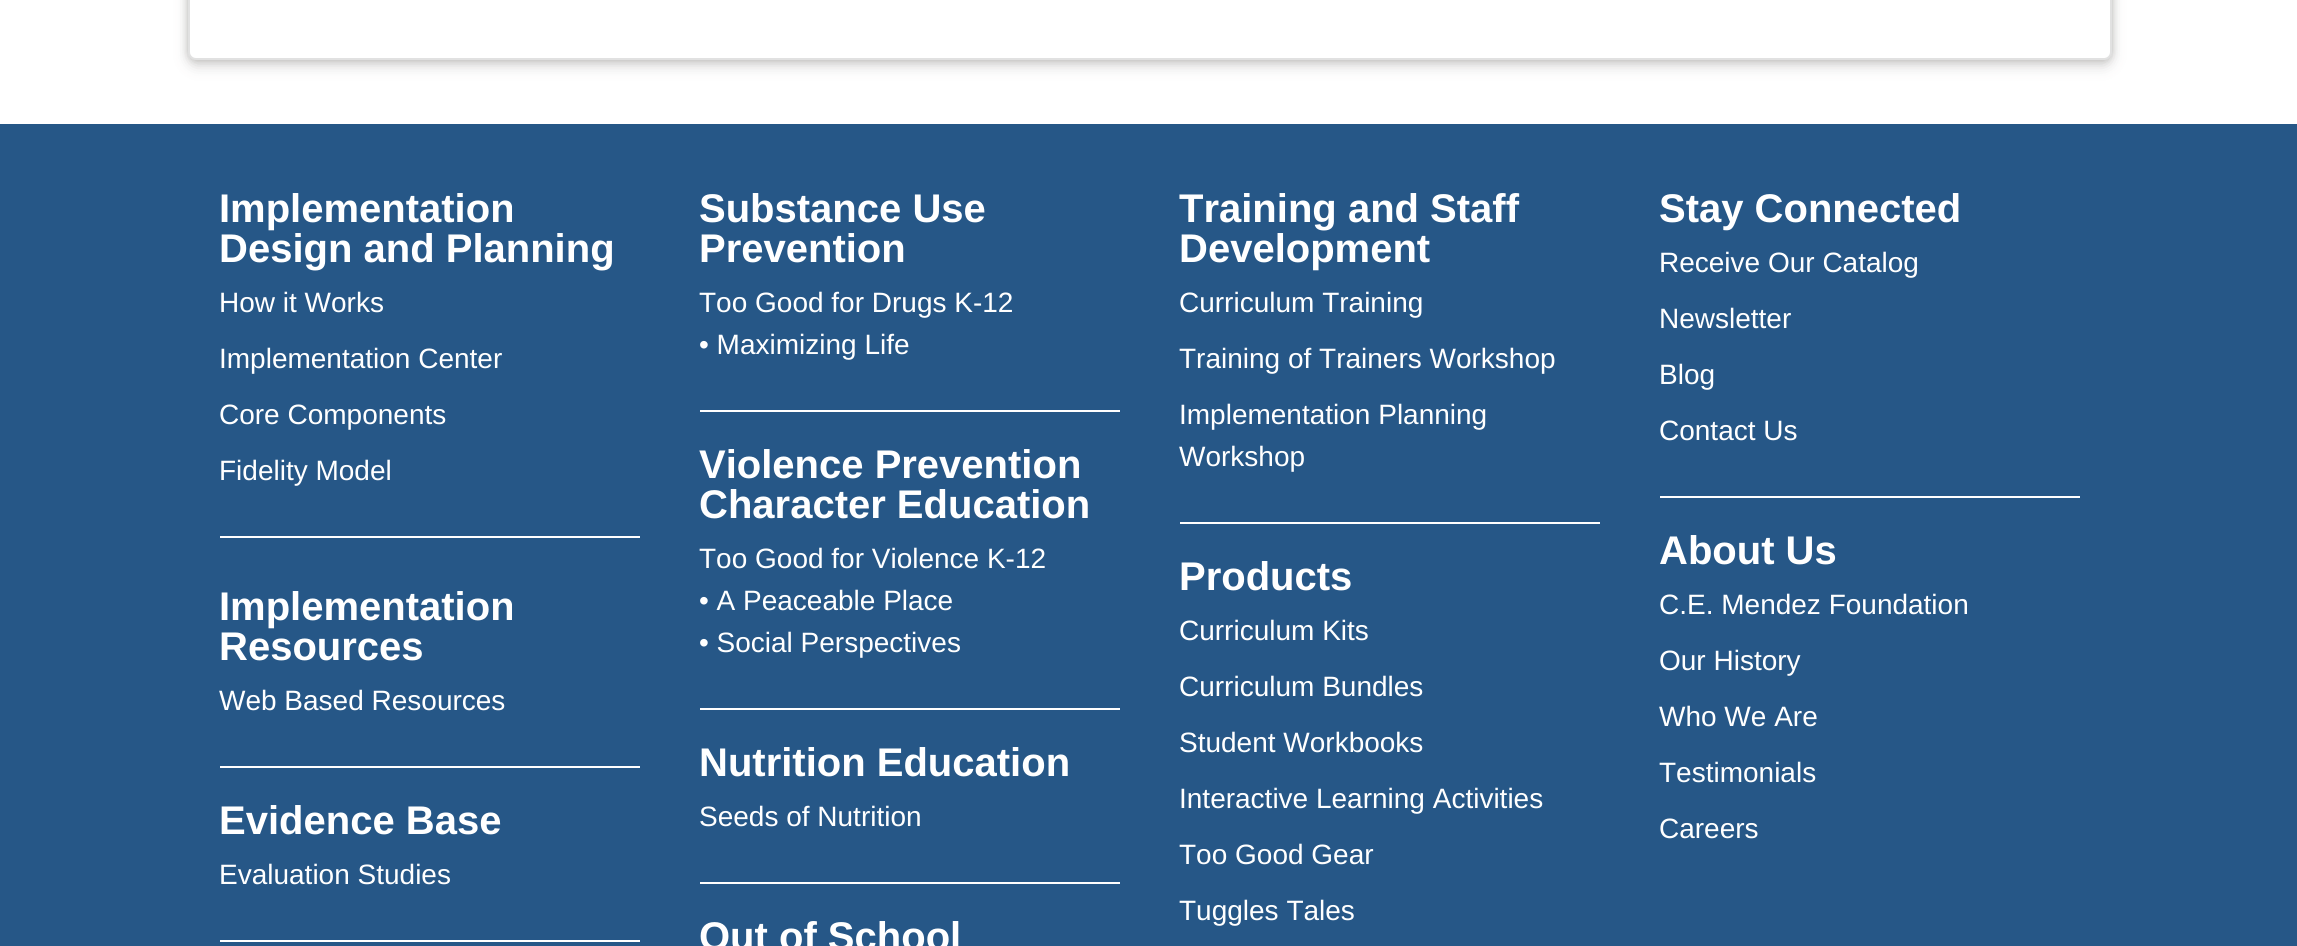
#include <cairo.h>
#include <math.h>
#include <stddef.h>


static void set_color(cairo_t *cr, unsigned color) {
    cairo_set_source_rgb(cr, (color >> 16) / 255.0, (color >> 8 & 255) / 255.0, (color & 255) / 255.0);
}

static void draw_text(cairo_t *cr, double x, double y, const char *s, const char *family, double size, int italic, int bold, unsigned color) {
    cairo_select_font_face(cr, family, italic ? CAIRO_FONT_SLANT_ITALIC : CAIRO_FONT_SLANT_NORMAL,
        bold ? CAIRO_FONT_WEIGHT_BOLD : CAIRO_FONT_WEIGHT_NORMAL);
    cairo_set_font_size(cr, size);
    set_color(cr, color);
    cairo_move_to(cr, x, y);
    cairo_show_text(cr, s);
}

static void fill_rect(cairo_t *cr, double x, double y, double w, double h, unsigned color) {
    set_color(cr, color);
    cairo_rectangle(cr, x, y, w, h);
    cairo_fill(cr);
}

static void rounded_rect(cairo_t *cr, double x, double y, double w, double h, double r) {
    cairo_new_sub_path(cr);
    cairo_arc(cr, x + w - r, y + h - r, r, 0, M_PI / 2);
    cairo_arc(cr, x + r, y + h - r, r, M_PI / 2, M_PI);
    cairo_arc(cr, x + r, y + r, r, M_PI, 1.5 * M_PI);
    cairo_arc(cr, x + w - r, y + r, r, 1.5 * M_PI, 2 * M_PI);
    cairo_close_path(cr);
}

static void draw_shadow(cairo_t *cr, double x, double y, double w, double h, double r, double blur, double alpha) {
    cairo_push_group_with_content(cr, CAIRO_CONTENT_ALPHA);
    cairo_set_operator(cr, CAIRO_OPERATOR_SOURCE);
    for (int i = 15; i >= -15 && fmin(w, h) + blur * i / 3 > 0; i -= 2) {
        double e = blur * i / 6;
        cairo_set_source_rgba(cr, 0, 0, 0, alpha * erfc((i - 1) / 8.5) / 2);
        rounded_rect(cr, x - e, y - e, w + 2 * e, h + 2 * e, fmax(0, fmin(r + e + blur * .6, fmin(w, h) / 2 + e)));
        cairo_fill(cr);
    }
    cairo_pattern_t *soft = cairo_pop_group(cr);
    cairo_mask(cr, soft);
    cairo_pattern_destroy(soft);
}

int main(void) {
    cairo_surface_t *surface = cairo_image_surface_create(CAIRO_FORMAT_RGB24, 2297, 946);
    cairo_t *cr = cairo_create(surface);
    cairo_font_options_t *options = cairo_font_options_create();
    cairo_font_options_set_hint_metrics(options, CAIRO_HINT_METRICS_OFF);
    cairo_font_options_set_hint_style(options, CAIRO_HINT_STYLE_NONE);
    cairo_set_font_options(cr, options);
    cairo_set_miter_limit(cr, 4);
    set_color(cr, 0xFFFFFF);
    cairo_paint(cr);
    set_color(cr, 0x403D39);
    draw_shadow(cr, 188, -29, 1924, 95, 8, 7, 0.2);
    draw_shadow(cr, 188, -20, 1924, 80, 8, 4, 0.25);
    set_color(cr, 0xFFFFFF);
    rounded_rect(cr, 188, -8, 1924, 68, 8);
    cairo_fill(cr);
    rounded_rect(cr, 189, -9, 1922, 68, 7);
    cairo_set_source_rgba(cr, 0, 0, 0, 0.12);
    cairo_stroke(cr);
    fill_rect(cr, 0, 124, 2297, 822, 0x265787);
    fill_rect(cr, 220, 536, 420, 2, 0xFFFFFF);
    draw_text(cr, 219, 222, "Implementation", "Liberation Sans", 40, 0, 1, 0xFFFFFF);
    draw_text(cr, 219, 262, "Design and Planning", "Liberation Sans", 40, 0, 1, 0xFFFFFF);
    draw_text(cr, 219, 312, "How it Works", "Liberation Sans", 28, 0, 0, 0xFFFFFF);
    draw_text(cr, 219, 368, "Implementation Center", "Liberation Sans", 28, 0, 0, 0xFFFFFF);
    draw_text(cr, 219, 424, "Core Components", "Liberation Sans", 28, 0, 0, 0xFFFFFF);
    draw_text(cr, 219, 480, "Fidelity Model", "Liberation Sans", 28, 0, 0, 0xFFFFFF);
    fill_rect(cr, 220, 766, 420, 2, 0xFFFFFF);
    draw_text(cr, 219, 620, "Implementation", "Liberation Sans", 40, 0, 1, 0xFFFFFF);
    draw_text(cr, 219, 660, "Resources", "Liberation Sans", 40, 0, 1, 0xFFFFFF);
    draw_text(cr, 219, 710, "Web Based Resources", "Liberation Sans", 28, 0, 0, 0xFFFFFF);
    fill_rect(cr, 220, 940, 420, 2, 0xFFFFFF);
    draw_text(cr, 219, 834, "Evidence Base", "Liberation Sans", 40, 0, 1, 0xFFFFFF);
    draw_text(cr, 219, 884, "Evaluation Studies", "Liberation Sans", 28, 0, 0, 0xFFFFFF);
    fill_rect(cr, 700, 410, 420, 2, 0xFFFFFF);
    draw_text(cr, 699, 222, "Substance Use", "Liberation Sans", 40, 0, 1, 0xFFFFFF);
    draw_text(cr, 699, 262, "Prevention", "Liberation Sans", 40, 0, 1, 0xFFFFFF);
    draw_text(cr, 699, 312, "Too Good for Drugs K-12", "Liberation Sans", 28, 0, 0, 0xFFFFFF);
    draw_text(cr, 699, 354, "• Maximizing Life", "Liberation Sans", 28, 0, 0, 0xFFFFFF);
    fill_rect(cr, 700, 708, 420, 2, 0xFFFFFF);
    draw_text(cr, 699, 478, "Violence Prevention", "Liberation Sans", 40, 0, 1, 0xFFFFFF);
    draw_text(cr, 699, 518, "Character Education", "Liberation Sans", 40, 0, 1, 0xFFFFFF);
    draw_text(cr, 699, 568, "Too Good for Violence K-12", "Liberation Sans", 28, 0, 0, 0xFFFFFF);
    draw_text(cr, 699, 610, "• A Peaceable Place", "Liberation Sans", 28, 0, 0, 0xFFFFFF);
    draw_text(cr, 699, 652, "• Social Perspectives", "Liberation Sans", 28, 0, 0, 0xFFFFFF);
    fill_rect(cr, 700, 882, 420, 2, 0xFFFFFF);
    draw_text(cr, 699, 776, "Nutrition Education", "Liberation Sans", 40, 0, 1, 0xFFFFFF);
    draw_text(cr, 699, 826, "Seeds of Nutrition", "Liberation Sans", 28, 0, 0, 0xFFFFFF);
    draw_text(cr, 699, 950, "Out of School", "Liberation Sans", 40, 0, 1, 0xFFFFFF);
    fill_rect(cr, 1180, 522, 420, 2, 0xFFFFFF);
    draw_text(cr, 1179, 222, "Training and Staff", "Liberation Sans", 40, 0, 1, 0xFFFFFF);
    draw_text(cr, 1179, 262, "Development", "Liberation Sans", 40, 0, 1, 0xFFFFFF);
    draw_text(cr, 1179, 312, "Curriculum Training", "Liberation Sans", 28, 0, 0, 0xFFFFFF);
    draw_text(cr, 1179, 368, "Training of Trainers Workshop", "Liberation Sans", 28, 0, 0, 0xFFFFFF);
    draw_text(cr, 1179, 424, "Implementation Planning", "Liberation Sans", 28, 0, 0, 0xFFFFFF);
    draw_text(cr, 1179, 466, "Workshop", "Liberation Sans", 28, 0, 0, 0xFFFFFF);
    draw_text(cr, 1179, 590, "Products", "Liberation Sans", 40, 0, 1, 0xFFFFFF);
    draw_text(cr, 1179, 640, "Curriculum Kits", "Liberation Sans", 28, 0, 0, 0xFFFFFF);
    draw_text(cr, 1179, 696, "Curriculum Bundles", "Liberation Sans", 28, 0, 0, 0xFFFFFF);
    draw_text(cr, 1179, 752, "Student Workbooks", "Liberation Sans", 28, 0, 0, 0xFFFFFF);
    draw_text(cr, 1179, 808, "Interactive Learning Activities", "Liberation Sans", 28, 0, 0, 0xFFFFFF);
    draw_text(cr, 1179, 864, "Too Good Gear", "Liberation Sans", 28, 0, 0, 0xFFFFFF);
    draw_text(cr, 1179, 920, "Tuggles Tales", "Liberation Sans", 28, 0, 0, 0xFFFFFF);
    fill_rect(cr, 1660, 496, 420, 2, 0xFFFFFF);
    draw_text(cr, 1659, 222, "Stay Connected", "Liberation Sans", 40, 0, 1, 0xFFFFFF);
    draw_text(cr, 1659, 272, "Receive Our Catalog", "Liberation Sans", 28, 0, 0, 0xFFFFFF);
    draw_text(cr, 1659, 328, "Newsletter", "Liberation Sans", 28, 0, 0, 0xFFFFFF);
    draw_text(cr, 1659, 384, "Blog", "Liberation Sans", 28, 0, 0, 0xFFFFFF);
    draw_text(cr, 1659, 440, "Contact Us", "Liberation Sans", 28, 0, 0, 0xFFFFFF);
    draw_text(cr, 1659, 564, "About Us", "Liberation Sans", 40, 0, 1, 0xFFFFFF);
    draw_text(cr, 1659, 614, "C.E. Mendez Foundation", "Liberation Sans", 28, 0, 0, 0xFFFFFF);
    draw_text(cr, 1659, 670, "Our History", "Liberation Sans", 28, 0, 0, 0xFFFFFF);
    draw_text(cr, 1659, 726, "Who We Are", "Liberation Sans", 28, 0, 0, 0xFFFFFF);
    draw_text(cr, 1659, 782, "Testimonials", "Liberation Sans", 28, 0, 0, 0xFFFFFF);
    draw_text(cr, 1659, 838, "Careers", "Liberation Sans", 28, 0, 0, 0xFFFFFF);
    cairo_surface_write_to_png(surface, "output.png");
    cairo_font_options_destroy(options);
    cairo_destroy(cr);
    cairo_surface_destroy(surface);
    return 0;
}
